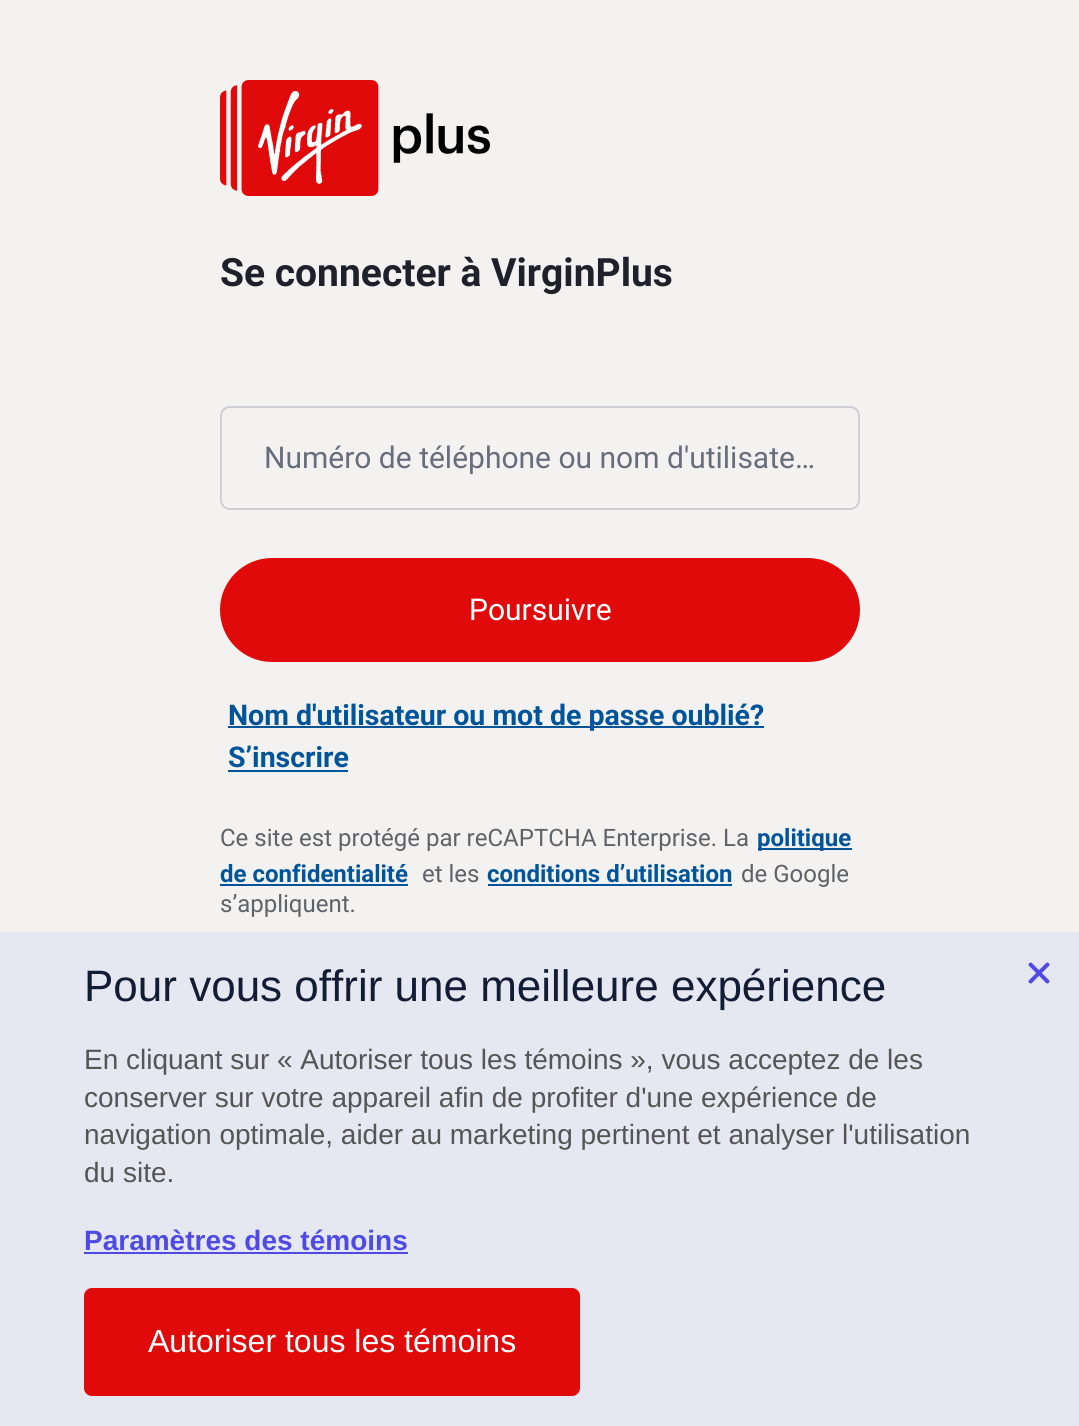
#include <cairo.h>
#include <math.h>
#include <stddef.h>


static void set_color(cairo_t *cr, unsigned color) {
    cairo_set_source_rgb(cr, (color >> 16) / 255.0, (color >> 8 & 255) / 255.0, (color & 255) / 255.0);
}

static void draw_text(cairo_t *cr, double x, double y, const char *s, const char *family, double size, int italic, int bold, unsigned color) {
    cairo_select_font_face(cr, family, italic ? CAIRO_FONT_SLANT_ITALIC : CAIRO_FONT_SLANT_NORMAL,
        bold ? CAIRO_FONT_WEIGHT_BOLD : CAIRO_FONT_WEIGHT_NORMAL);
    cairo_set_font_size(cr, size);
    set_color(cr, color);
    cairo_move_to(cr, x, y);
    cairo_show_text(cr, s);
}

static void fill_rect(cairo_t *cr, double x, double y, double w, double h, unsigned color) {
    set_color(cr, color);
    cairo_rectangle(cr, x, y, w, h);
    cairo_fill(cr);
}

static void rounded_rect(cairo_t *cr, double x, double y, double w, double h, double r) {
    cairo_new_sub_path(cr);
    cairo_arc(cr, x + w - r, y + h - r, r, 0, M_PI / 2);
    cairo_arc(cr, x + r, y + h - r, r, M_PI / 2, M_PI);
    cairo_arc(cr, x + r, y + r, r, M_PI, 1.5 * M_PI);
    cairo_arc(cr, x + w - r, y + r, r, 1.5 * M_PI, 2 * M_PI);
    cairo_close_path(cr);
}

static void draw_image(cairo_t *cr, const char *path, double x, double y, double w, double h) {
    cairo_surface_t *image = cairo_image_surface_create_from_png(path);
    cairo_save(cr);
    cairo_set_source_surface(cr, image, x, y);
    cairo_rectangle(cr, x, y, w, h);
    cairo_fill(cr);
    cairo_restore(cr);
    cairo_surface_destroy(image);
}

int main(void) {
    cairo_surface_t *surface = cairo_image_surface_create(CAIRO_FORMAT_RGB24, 1079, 1426);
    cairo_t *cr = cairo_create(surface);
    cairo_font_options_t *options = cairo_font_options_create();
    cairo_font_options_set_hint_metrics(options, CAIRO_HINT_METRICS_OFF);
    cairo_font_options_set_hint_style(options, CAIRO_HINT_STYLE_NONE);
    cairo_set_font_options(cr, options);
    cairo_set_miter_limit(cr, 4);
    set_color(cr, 0xF3F2F0);
    cairo_paint(cr);
    draw_image(cr, "assets/img1.png", 220, 80, 270, 116);
    draw_text(cr, 220, 286, "Se connecter à VirginPlus", "Roboto", 39, 0, 1, 0x1E212A);
    rounded_rect(cr, 221, 407, 638, 102, 9);
    set_color(cr, 0xCDCFD5);
    cairo_stroke(cr);
    draw_text(cr, 264, 468, "Numéro de téléphone ou nom d'utilisate…", "Roboto", 30, 0, 0, 0x686D7C);
    set_color(cr, 0xE10A0A);
    rounded_rect(cr, 220, 558, 640, 104, 52);
    cairo_fill(cr);
    draw_text(cr, 469, 620, "Poursuivre", "Roboto", 30, 0, 0, 0xFFFFFF);
    fill_rect(cr, 228, 726, 536, 2, 0x00549A);
    draw_text(cr, 228, 725, "Nom d'utilisateur ou mot de passe oublié?", "Roboto", 28.5, 0, 1, 0x00549A);
    draw_text(cr, 228, 767, "S’inscrire", "Roboto", 28.5, 0, 1, 0x00549A);
    fill_rect(cr, 228, 770, 120, 2, 0x00549A);
    draw_text(cr, 220, 846, "Ce site est protégé par reCAPTCHA Enterprise. La", "Roboto", 24, 0, 0, 0x5F6368);
    fill_rect(cr, 758, 848, 94, 2, 0x00549A);
    draw_text(cr, 757, 846, "politique", "Roboto", 24, 0, 1, 0x00549A);
    draw_text(cr, 220, 882, "de confidentialité", "Roboto", 24, 0, 1, 0x00549A);
    fill_rect(cr, 220, 884, 188, 2, 0x00549A);
    draw_text(cr, 422, 882, "et les", "Roboto", 24, 0, 0, 0x5F6368);
    draw_text(cr, 487, 882, "conditions d’utilisation", "Roboto", 24, 0, 1, 0x00549A);
    fill_rect(cr, 488, 884, 244, 2, 0x00549A);
    draw_text(cr, 741, 882, "de Google", "Roboto", 24, 0, 0, 0x5F6368);
    draw_text(cr, 220, 912, "s’appliquent.", "Roboto", 24, 0, 0, 0x5F6368);
    fill_rect(cr, 0, 932, 1079, 494, 0xE5E8F0);
    draw_text(cr, 84, 1001, "Pour vous offrir une meilleure expérience", "Liberation Sans", 44, 0, 0, 0x131C35);
    draw_text(cr, 84, 1069, "En cliquant sur « Autoriser tous les témoins », vous acceptez de les", "Liberation Sans", 28, 0, 0, 0x555555);
    draw_text(cr, 84, 1107, "conserver sur votre appareil afin de profiter d'une expérience de", "Liberation Sans", 28, 0, 0, 0x555555);
    draw_text(cr, 84, 1144, "navigation optimale, aider au marketing pertinent et analyser l'utilisation", "Liberation Sans", 28, 0, 0, 0x555555);
    draw_text(cr, 84, 1182, "du site.", "Liberation Sans", 28, 0, 0, 0x555555);
    draw_text(cr, 84, 1250, "Paramètres des témoins", "Liberation Sans", 28, 0, 1, 0x4E4AE4);
    fill_rect(cr, 84, 1252, 324, 2, 0x4E4AE4);
    set_color(cr, 0xE10A0A);
    rounded_rect(cr, 86, 1290, 492, 104, 6);
    cairo_fill_preserve(cr);
    cairo_set_line_width(cr, 4);
    cairo_stroke(cr);
    draw_text(cr, 148, 1352, "Autoriser tous les témoins", "Liberation Sans", 32, 0, 0, 0xFFFFFF);
    draw_image(cr, "assets/img2.png", 1028, 962, 22, 22);
    cairo_surface_write_to_png(surface, "output.png");
    cairo_font_options_destroy(options);
    cairo_destroy(cr);
    cairo_surface_destroy(surface);
    return 0;
}
